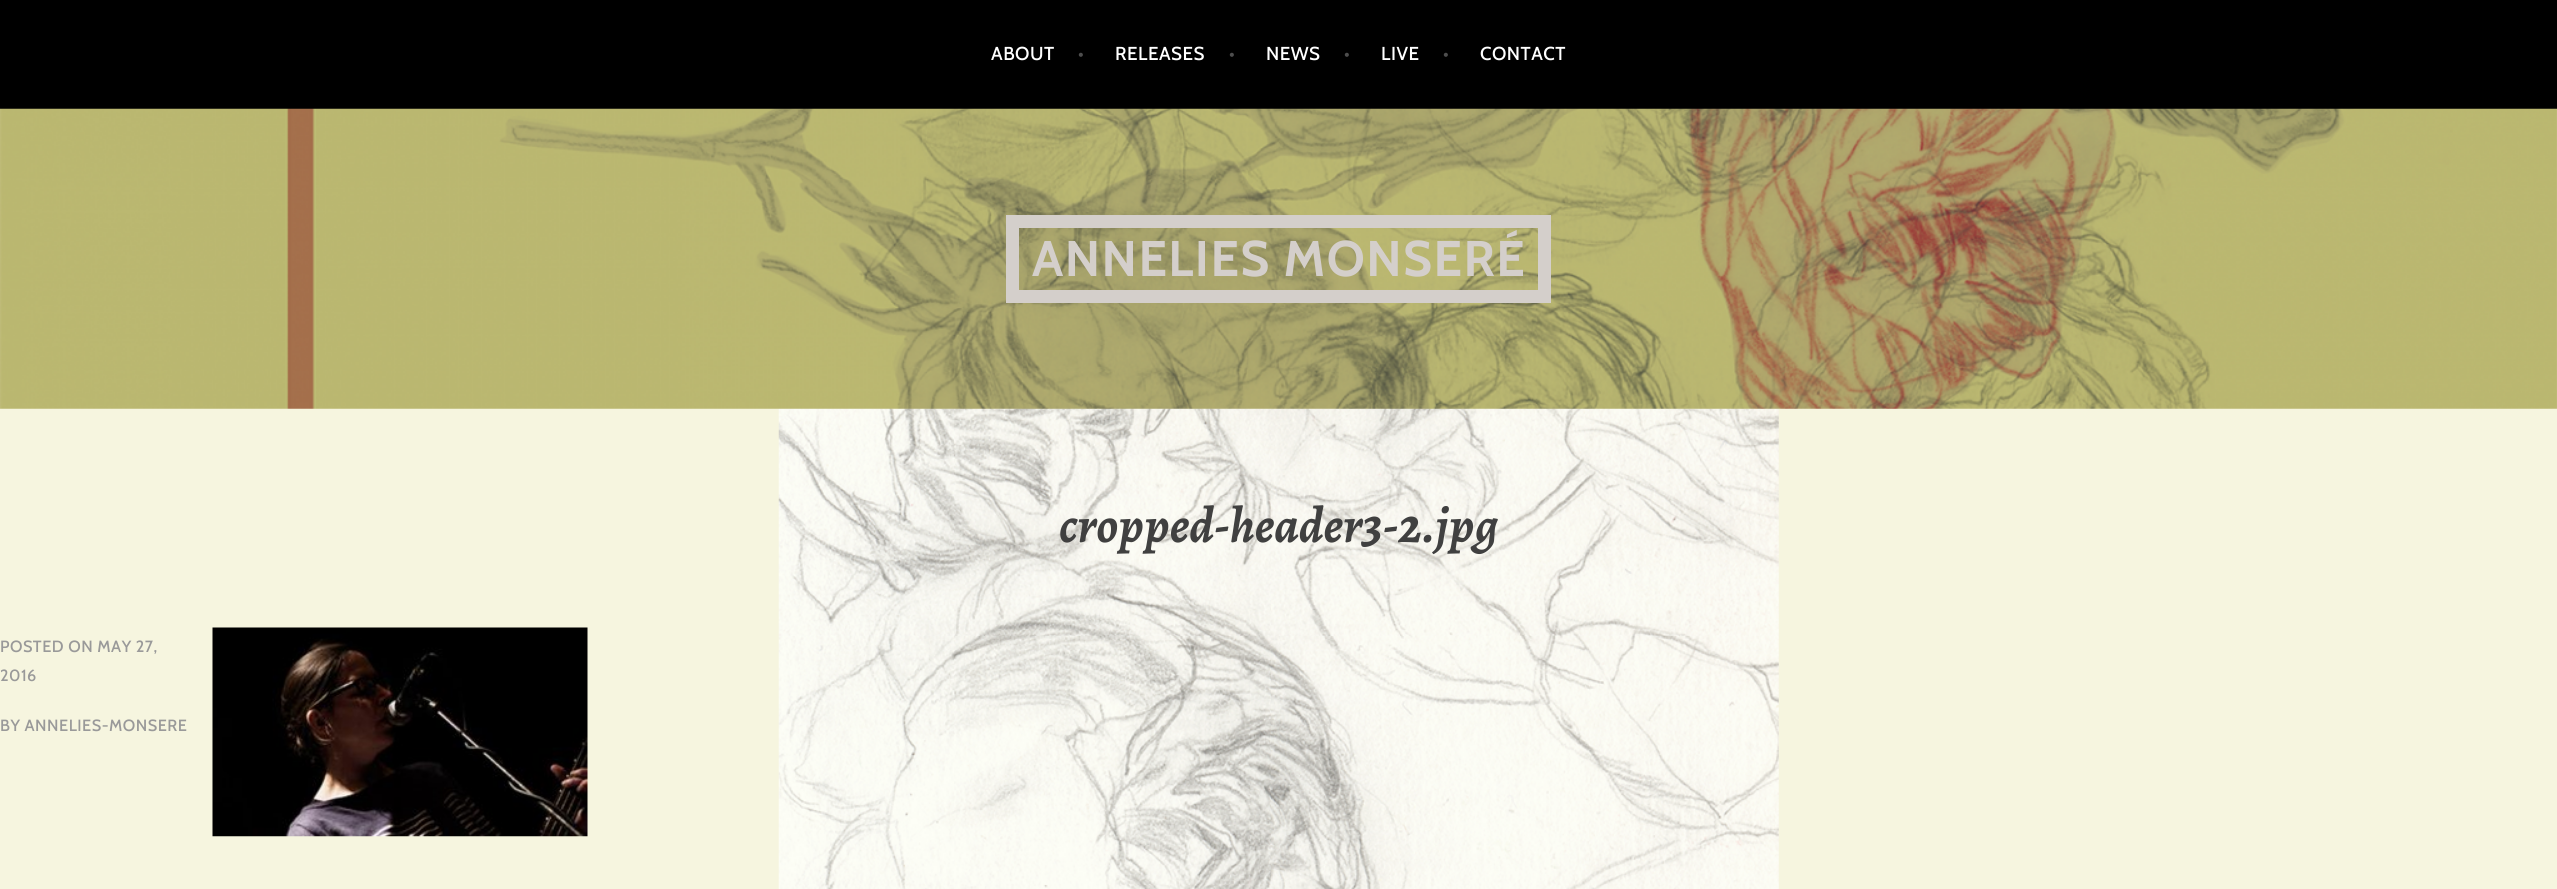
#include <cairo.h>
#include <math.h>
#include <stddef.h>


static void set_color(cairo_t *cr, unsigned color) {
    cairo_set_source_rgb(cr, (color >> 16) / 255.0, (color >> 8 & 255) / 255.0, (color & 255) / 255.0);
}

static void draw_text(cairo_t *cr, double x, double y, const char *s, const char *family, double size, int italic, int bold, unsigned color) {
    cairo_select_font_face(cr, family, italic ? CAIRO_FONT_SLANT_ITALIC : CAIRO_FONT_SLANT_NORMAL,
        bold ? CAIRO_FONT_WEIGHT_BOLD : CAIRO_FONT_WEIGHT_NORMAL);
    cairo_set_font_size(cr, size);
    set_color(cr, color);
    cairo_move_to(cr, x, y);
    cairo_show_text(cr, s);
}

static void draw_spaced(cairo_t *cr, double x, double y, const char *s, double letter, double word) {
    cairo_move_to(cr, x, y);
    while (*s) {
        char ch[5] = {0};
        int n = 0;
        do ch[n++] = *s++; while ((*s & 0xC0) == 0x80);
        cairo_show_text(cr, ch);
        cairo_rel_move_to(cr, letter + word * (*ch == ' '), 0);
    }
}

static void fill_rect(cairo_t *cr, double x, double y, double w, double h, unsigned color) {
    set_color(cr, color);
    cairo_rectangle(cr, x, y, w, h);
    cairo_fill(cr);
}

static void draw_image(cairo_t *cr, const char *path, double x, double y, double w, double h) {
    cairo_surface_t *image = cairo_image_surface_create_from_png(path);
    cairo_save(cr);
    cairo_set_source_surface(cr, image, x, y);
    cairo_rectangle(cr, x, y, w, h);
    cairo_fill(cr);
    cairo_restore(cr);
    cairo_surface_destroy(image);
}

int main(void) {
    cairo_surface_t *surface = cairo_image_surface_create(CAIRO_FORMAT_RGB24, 2557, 889);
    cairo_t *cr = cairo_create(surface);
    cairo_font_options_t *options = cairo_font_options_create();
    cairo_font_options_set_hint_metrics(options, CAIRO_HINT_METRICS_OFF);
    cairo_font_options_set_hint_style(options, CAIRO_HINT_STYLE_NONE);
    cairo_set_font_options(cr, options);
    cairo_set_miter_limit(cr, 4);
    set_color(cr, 0xF6F5DF);
    cairo_paint(cr);
    draw_image(cr, "assets/img1.png", 778, 408, 1001, 481);
    fill_rect(cr, 0, 0, 2557, 109, 0x000000);
    cairo_select_font_face(cr, "Cabin Medium", CAIRO_FONT_SLANT_NORMAL, CAIRO_FONT_WEIGHT_NORMAL);
    cairo_set_font_size(cr, 18.75);
    set_color(cr, 0xFFFFFF);
    draw_spaced(cr, 991, 60, "ABOUT", 0.5, 0);
    set_color(cr, 0x4D4D4D);
    draw_spaced(cr, 1078, 60, "•", 0.5, 0);
    set_color(cr, 0xFFFFFF);
    draw_spaced(cr, 1115, 60, "RELEASES", 0.5, 0);
    set_color(cr, 0x4D4D4D);
    draw_spaced(cr, 1229, 60, "•", 0.5, 0);
    set_color(cr, 0xFFFFFF);
    draw_spaced(cr, 1266, 60, "NEWS", 0.5, 0);
    set_color(cr, 0x4D4D4D);
    draw_spaced(cr, 1344, 60, "•", 0.5, 0);
    set_color(cr, 0xFFFFFF);
    draw_spaced(cr, 1381, 60, "LIVE", 0.5, 0);
    set_color(cr, 0x4D4D4D);
    draw_spaced(cr, 1443, 60, "•", 0.5, 0);
    set_color(cr, 0xFFFFFF);
    draw_spaced(cr, 1480, 60, "CONTACT", 0.5, 0);
    draw_image(cr, "assets/img2.png", 0, 108, 2557, 301);
    cairo_rectangle(cr, 1012.5, 221.5, 532, 75);
    set_color(cr, 0xD4CFCB);
    cairo_set_line_width(cr, 13);
    cairo_stroke(cr);
    cairo_select_font_face(cr, "Cabin", CAIRO_FONT_SLANT_NORMAL, CAIRO_FONT_WEIGHT_BOLD);
    cairo_set_font_size(cr, 50);
    draw_spaced(cr, 1032, 276, "ANNELIES MONSERÉ", 1.5, 0);
    draw_text(cr, 1059, 542, "cropped-header3-2.jpg", "Alegreya", 50, 1, 1, 0x404040);
    cairo_select_font_face(cr, "Cabin Medium", CAIRO_FONT_SLANT_NORMAL, CAIRO_FONT_WEIGHT_NORMAL);
    cairo_set_font_size(cr, 16.25);
    set_color(cr, 0x999999);
    draw_spaced(cr, 0, 652, "POSTED ON MAY 27,", 0.5, 0);
    draw_spaced(cr, 0, 681, "2016", 0.5, 0);
    draw_spaced(cr, 0, 731, "BY ANNELIES-MONSERE", 0.5, 0);
    draw_image(cr, "assets/img3.png", 212, 627, 376, 210);
    cairo_surface_write_to_png(surface, "output.png");
    cairo_font_options_destroy(options);
    cairo_destroy(cr);
    cairo_surface_destroy(surface);
    return 0;
}
